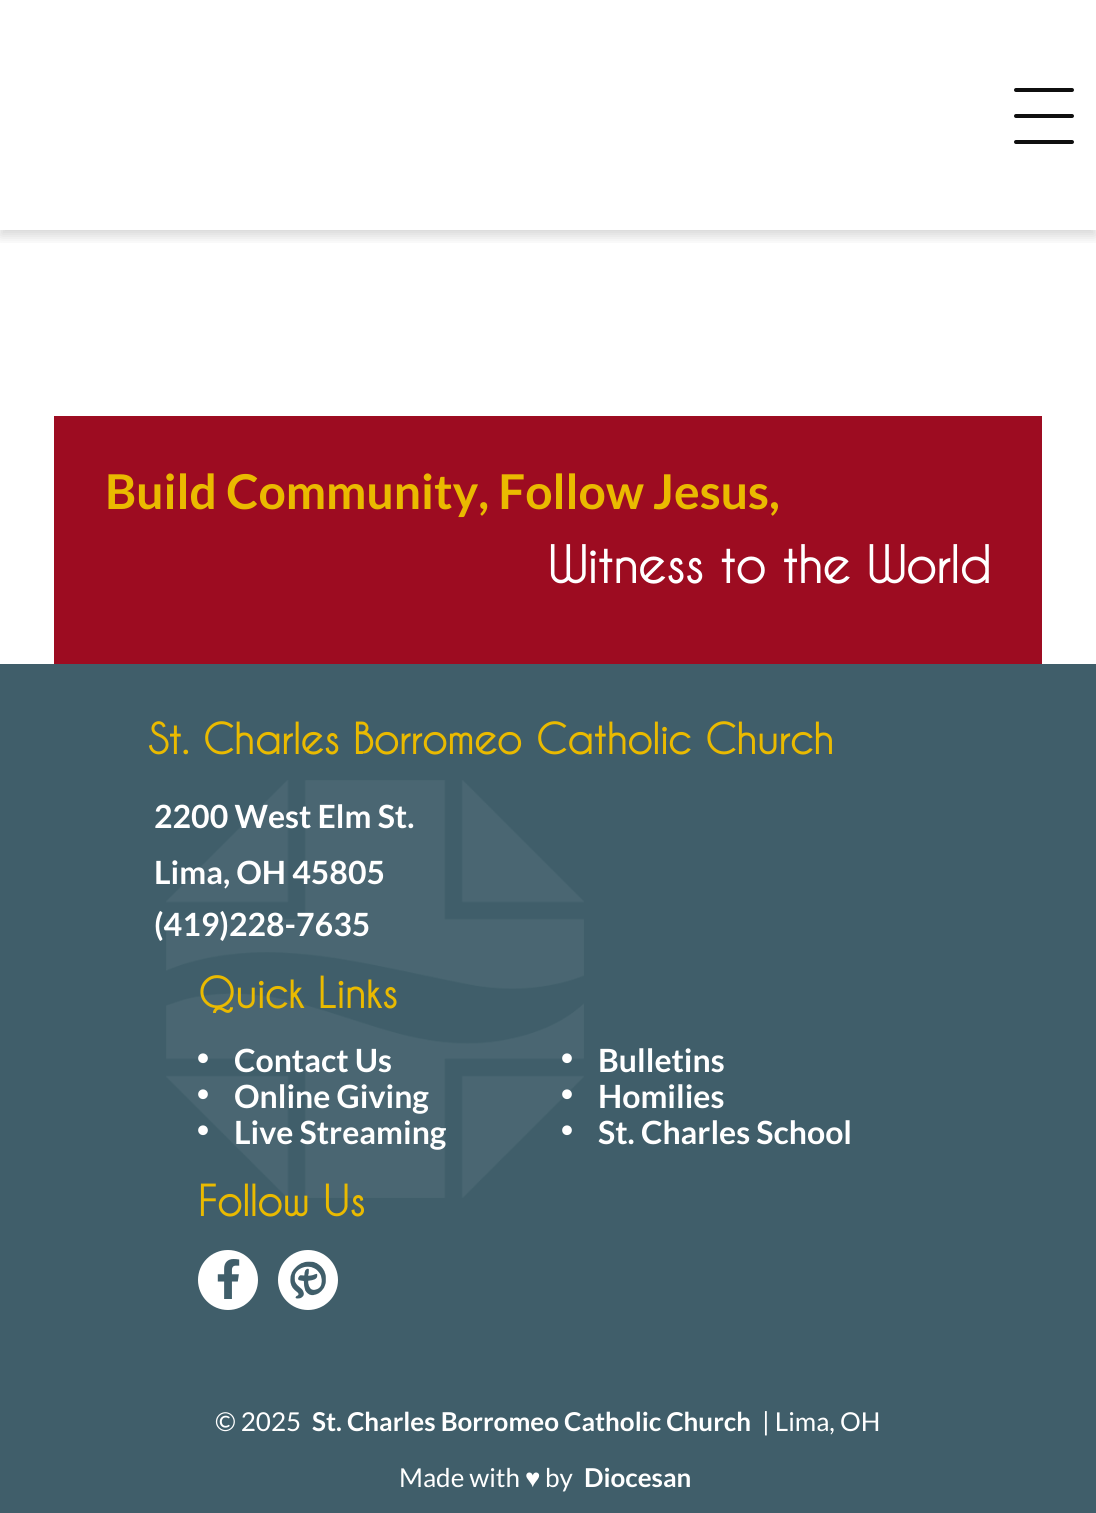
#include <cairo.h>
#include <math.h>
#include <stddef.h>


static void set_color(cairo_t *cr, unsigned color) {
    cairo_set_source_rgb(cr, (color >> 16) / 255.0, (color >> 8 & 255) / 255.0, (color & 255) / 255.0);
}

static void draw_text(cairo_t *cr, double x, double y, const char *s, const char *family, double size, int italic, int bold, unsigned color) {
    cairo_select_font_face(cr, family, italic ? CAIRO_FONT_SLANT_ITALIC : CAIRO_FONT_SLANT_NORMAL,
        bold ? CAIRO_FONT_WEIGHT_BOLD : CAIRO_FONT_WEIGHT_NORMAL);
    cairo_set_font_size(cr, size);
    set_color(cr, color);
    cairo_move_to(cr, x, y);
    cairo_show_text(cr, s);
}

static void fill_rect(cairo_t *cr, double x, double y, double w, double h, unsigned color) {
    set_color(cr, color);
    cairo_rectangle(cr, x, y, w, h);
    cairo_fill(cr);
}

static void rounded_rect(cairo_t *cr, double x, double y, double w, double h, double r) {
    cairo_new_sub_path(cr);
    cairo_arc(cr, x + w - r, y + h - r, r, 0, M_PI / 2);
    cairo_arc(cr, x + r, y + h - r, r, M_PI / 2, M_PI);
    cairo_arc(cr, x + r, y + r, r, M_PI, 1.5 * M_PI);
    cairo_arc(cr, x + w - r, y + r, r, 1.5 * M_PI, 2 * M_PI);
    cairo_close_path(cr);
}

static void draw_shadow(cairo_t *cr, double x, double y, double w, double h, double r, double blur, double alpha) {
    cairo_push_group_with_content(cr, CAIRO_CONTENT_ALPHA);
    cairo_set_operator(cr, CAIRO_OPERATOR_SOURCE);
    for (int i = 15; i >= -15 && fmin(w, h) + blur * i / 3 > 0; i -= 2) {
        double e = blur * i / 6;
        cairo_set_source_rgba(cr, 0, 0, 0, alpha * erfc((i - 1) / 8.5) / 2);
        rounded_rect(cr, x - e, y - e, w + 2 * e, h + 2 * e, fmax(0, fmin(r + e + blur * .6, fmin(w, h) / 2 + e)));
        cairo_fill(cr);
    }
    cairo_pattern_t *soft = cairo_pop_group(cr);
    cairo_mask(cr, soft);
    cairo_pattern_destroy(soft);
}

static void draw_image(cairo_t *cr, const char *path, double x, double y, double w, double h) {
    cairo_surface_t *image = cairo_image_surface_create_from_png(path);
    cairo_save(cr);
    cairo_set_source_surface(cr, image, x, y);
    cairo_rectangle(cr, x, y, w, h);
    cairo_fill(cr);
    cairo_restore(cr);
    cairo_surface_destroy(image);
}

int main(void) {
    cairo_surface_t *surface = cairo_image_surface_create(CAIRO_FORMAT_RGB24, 1096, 1513);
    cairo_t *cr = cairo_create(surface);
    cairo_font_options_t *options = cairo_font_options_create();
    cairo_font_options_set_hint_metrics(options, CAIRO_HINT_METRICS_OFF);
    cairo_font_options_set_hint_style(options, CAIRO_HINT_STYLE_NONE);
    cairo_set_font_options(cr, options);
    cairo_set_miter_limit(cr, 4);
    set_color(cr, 0xFFFFFF);
    cairo_paint(cr);
    cairo_save(cr);
    cairo_rectangle(cr, 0, 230, 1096, 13);
    cairo_clip(cr);
    set_color(cr, 0x000000);
    draw_shadow(cr, 0, 6, 1096, 230, 0, 6, 0.16);
    cairo_restore(cr);
    set_color(cr, 0x0F0F0F);
    rounded_rect(cr, 1014, 88, 60, 4, 2);
    cairo_fill(cr);
    rounded_rect(cr, 1014, 114, 60, 4, 2);
    cairo_fill(cr);
    rounded_rect(cr, 1014, 140, 60, 4, 2);
    cairo_fill(cr);
    fill_rect(cr, 54, 416, 988, 248, 0x9D0C21);
    draw_text(cr, 105, 509, "Build Community, Follow Jesus,", "Lato", 48, 0, 1, 0xEABA00);
    draw_text(cr, 548, 583, "Witness to the World", "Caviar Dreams", 48, 0, 1, 0xFFFFFF);
    fill_rect(cr, 0, 664, 1096, 849, 0x405E6A);
    draw_text(cr, 148, 754, "St. Charles Borromeo Catholic Church", "Caviar Dreams", 40, 0, 1, 0xEABA00);
    draw_text(cr, 154, 828, "2200 West Elm St.", "Lato", 32, 0, 1, 0xFFFFFF);
    draw_text(cr, 154, 884, "Lima, OH 45805", "Lato", 32, 0, 1, 0xFFFFFF);
    draw_text(cr, 154, 936, "(419)228-7635", "Lato", 32, 0, 1, 0xFFFFFF);
    draw_image(cr, "assets/img7.png", 166, 780, 418, 418);
    draw_text(cr, 198, 1008, "Quick Links", "Caviar Dreams", 40, 0, 1, 0xEABA00);
    draw_image(cr, "assets/img1.png", 198, 1053, 10, 11);
    draw_text(cr, 234, 1072, "Contact Us", "Lato", 32, 0, 1, 0xFFFFFF);
    draw_image(cr, "assets/img1.png", 562, 1053, 10, 11);
    draw_text(cr, 598, 1072, "Bulletins", "Lato", 32, 0, 1, 0xFFFFFF);
    draw_image(cr, "assets/img2.png", 198, 1089, 10, 11);
    draw_text(cr, 234, 1108, "Online Giving", "Lato", 32, 0, 1, 0xFFFFFF);
    draw_image(cr, "assets/img3.png", 562, 1089, 10, 11);
    draw_text(cr, 598, 1108, "Homilies", "Lato", 32, 0, 1, 0xFFFFFF);
    draw_image(cr, "assets/img4.png", 198, 1125, 10, 11);
    draw_text(cr, 234, 1144, "Live Streaming", "Lato", 32, 0, 1, 0xFFFFFF);
    draw_image(cr, "assets/img4.png", 562, 1125, 10, 11);
    draw_text(cr, 598, 1144, "St. Charles School", "Lato", 32, 0, 1, 0xFFFFFF);
    draw_text(cr, 198, 1216, "Follow Us", "Caviar Dreams", 40, 0, 1, 0xEABA00);
    set_color(cr, 0xFFFFFF);
    cairo_new_path(cr);
    cairo_arc(cr, 228, 1280, 30, 0, 2 * M_PI);
    cairo_fill(cr);
    draw_image(cr, "assets/img5.png", 217, 1259, 23, 40);
    cairo_arc(cr, 308, 1280, 30, 0, 2 * M_PI);
    cairo_fill(cr);
    draw_image(cr, "assets/img6.png", 290, 1261, 36, 38);
    draw_text(cr, 215, 1431, "© 2025", "Lato", 26, 0, 0, 0xFFFFFF);
    draw_text(cr, 312, 1431, "St. Charles Borromeo Catholic Church", "Lato", 26, 0, 1, 0xFFFFFF);
    draw_text(cr, 762, 1431, "| Lima, OH", "Lato", 26, 0, 0, 0xFFFFFF);
    draw_text(cr, 399, 1487, "Made with", "Lato", 26, 0, 0, 0xFFFFFF);
    draw_text(cr, 525, 1487, "♥", "Liberation Sans", 26, 0, 0, 0xFFFFFF);
    draw_text(cr, 545, 1487, "by", "Lato", 26, 0, 0, 0xFFFFFF);
    draw_text(cr, 584, 1487, "Diocesan", "Lato", 26, 0, 1, 0xFFFFFF);
    cairo_surface_write_to_png(surface, "output.png");
    cairo_font_options_destroy(options);
    cairo_destroy(cr);
    cairo_surface_destroy(surface);
    return 0;
}
